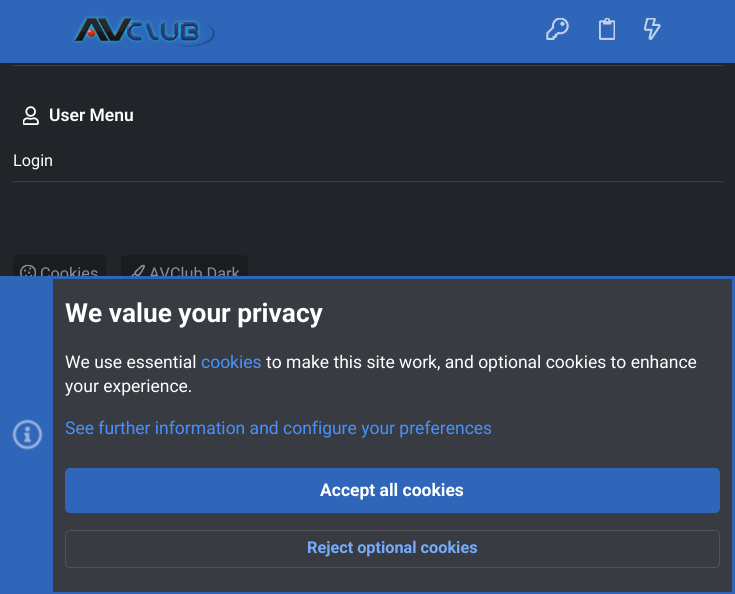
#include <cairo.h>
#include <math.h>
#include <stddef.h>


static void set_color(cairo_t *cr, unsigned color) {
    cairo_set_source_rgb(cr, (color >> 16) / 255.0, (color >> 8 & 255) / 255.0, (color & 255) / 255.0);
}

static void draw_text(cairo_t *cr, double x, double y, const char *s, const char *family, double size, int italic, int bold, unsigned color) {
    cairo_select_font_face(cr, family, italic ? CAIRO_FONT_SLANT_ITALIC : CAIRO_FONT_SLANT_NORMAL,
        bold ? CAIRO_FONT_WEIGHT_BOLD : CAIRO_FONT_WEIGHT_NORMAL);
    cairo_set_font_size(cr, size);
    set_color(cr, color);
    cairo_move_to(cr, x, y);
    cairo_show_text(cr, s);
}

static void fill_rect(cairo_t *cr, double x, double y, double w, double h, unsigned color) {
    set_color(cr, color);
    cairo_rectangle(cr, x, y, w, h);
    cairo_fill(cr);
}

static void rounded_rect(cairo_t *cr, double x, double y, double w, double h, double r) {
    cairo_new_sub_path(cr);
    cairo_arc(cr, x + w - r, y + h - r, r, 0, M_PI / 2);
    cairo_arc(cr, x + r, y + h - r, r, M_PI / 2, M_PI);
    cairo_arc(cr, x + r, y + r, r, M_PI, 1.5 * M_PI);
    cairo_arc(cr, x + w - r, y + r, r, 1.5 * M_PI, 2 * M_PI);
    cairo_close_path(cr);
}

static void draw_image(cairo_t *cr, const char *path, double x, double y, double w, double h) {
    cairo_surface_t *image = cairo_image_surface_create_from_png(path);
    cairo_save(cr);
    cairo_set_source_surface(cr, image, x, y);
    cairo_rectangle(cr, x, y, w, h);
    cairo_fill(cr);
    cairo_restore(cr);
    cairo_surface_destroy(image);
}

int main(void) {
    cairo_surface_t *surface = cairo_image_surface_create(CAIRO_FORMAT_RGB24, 735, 594);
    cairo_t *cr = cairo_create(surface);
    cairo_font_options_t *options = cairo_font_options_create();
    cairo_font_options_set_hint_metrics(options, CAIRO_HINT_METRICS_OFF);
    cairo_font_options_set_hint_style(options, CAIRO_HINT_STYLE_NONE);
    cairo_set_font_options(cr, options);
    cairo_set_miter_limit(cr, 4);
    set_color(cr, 0x212428);
    cairo_paint(cr);
    fill_rect(cr, 0, 0, 735, 63, 0x2F66B9);
    draw_image(cr, "assets/img1.png", 72, 15, 143, 32);
    draw_image(cr, "assets/img2.png", 546, 18, 23, 22);
    draw_image(cr, "assets/img3.png", 599, 18, 16, 22);
    draw_image(cr, "assets/img4.png", 644, 18, 17, 22);
    fill_rect(cr, 13, 65, 710, 1, 0x3C3E42);
    draw_image(cr, "assets/img5.png", 23, 106, 16, 19);
    draw_text(cr, 49, 121, "User Menu", "Roboto SemiBold", 17.5, 0, 0, 0xFFFFFF);
    fill_rect(cr, 13, 181, 710, 1, 0x3C3E42);
    draw_text(cr, 13, 166, "Login", "Roboto", 16.25, 0, 0, 0xFFFFFF);
    set_color(cr, 0x1A1D20);
    rounded_rect(cr, 13, 255, 93, 39, 5);
    cairo_fill(cr);
    draw_image(cr, "assets/img6.png", 20, 264, 16, 12);
    draw_text(cr, 40, 279, "Cookies", "Roboto", 16.25, 0, 0, 0x8D8E90);
    set_color(cr, 0x1A1D20);
    rounded_rect(cr, 121, 255, 127, 39, 5);
    cairo_fill(cr);
    draw_image(cr, "assets/img7.png", 129, 264, 16, 12);
    draw_text(cr, 149, 279, "AVClub Dark", "Roboto", 16.25, 0, 0, 0x8D8E90);
    fill_rect(cr, 53, 279, 679, 313, 0x383C42);
    cairo_rectangle(cr, 1.5, 277.5, 732, 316);
    set_color(cr, 0x2F66B9);
    cairo_set_line_width(cr, 3);
    cairo_stroke(cr);
    fill_rect(cr, 3, 279, 50, 313, 0x2F66B9);
    draw_image(cr, "assets/img8.png", 12, 419, 31, 31);
    draw_text(cr, 65, 322, "We value your privacy", "Roboto", 26.25, 0, 1, 0xFFFFFF);
    draw_text(cr, 65, 368, "We use essential", "Roboto", 17.5, 0, 0, 0xFFFFFF);
    draw_text(cr, 201, 368, "cookies", "Roboto", 17.5, 0, 0, 0x4791FF);
    draw_text(cr, 266, 368, "to make this site work, and optional cookies to enhance", "Roboto", 17.5, 0, 0, 0xFFFFFF);
    draw_text(cr, 65, 392, "your experience.", "Roboto", 17.5, 0, 0, 0xFFFFFF);
    draw_text(cr, 65, 434, "See further information and configure your preferences", "Roboto", 17.5, 0, 0, 0x4791FF);
    set_color(cr, 0x2F66B9);
    rounded_rect(cr, 65, 468, 655, 45, 5);
    cairo_fill(cr);
    draw_text(cr, 320, 496, "Accept all cookies", "Roboto", 17.5, 0, 1, 0xFFFFFF);
    rounded_rect(cr, 65.5, 530.5, 654, 37, 4.5);
    set_color(cr, 0x505359);
    cairo_set_line_width(cr, 1);
    cairo_stroke(cr);
    draw_text(cr, 307, 553, "Reject optional cookies", "Roboto", 16.25, 0, 1, 0x75ACFF);
    cairo_surface_write_to_png(surface, "output.png");
    cairo_font_options_destroy(options);
    cairo_destroy(cr);
    cairo_surface_destroy(surface);
    return 0;
}
